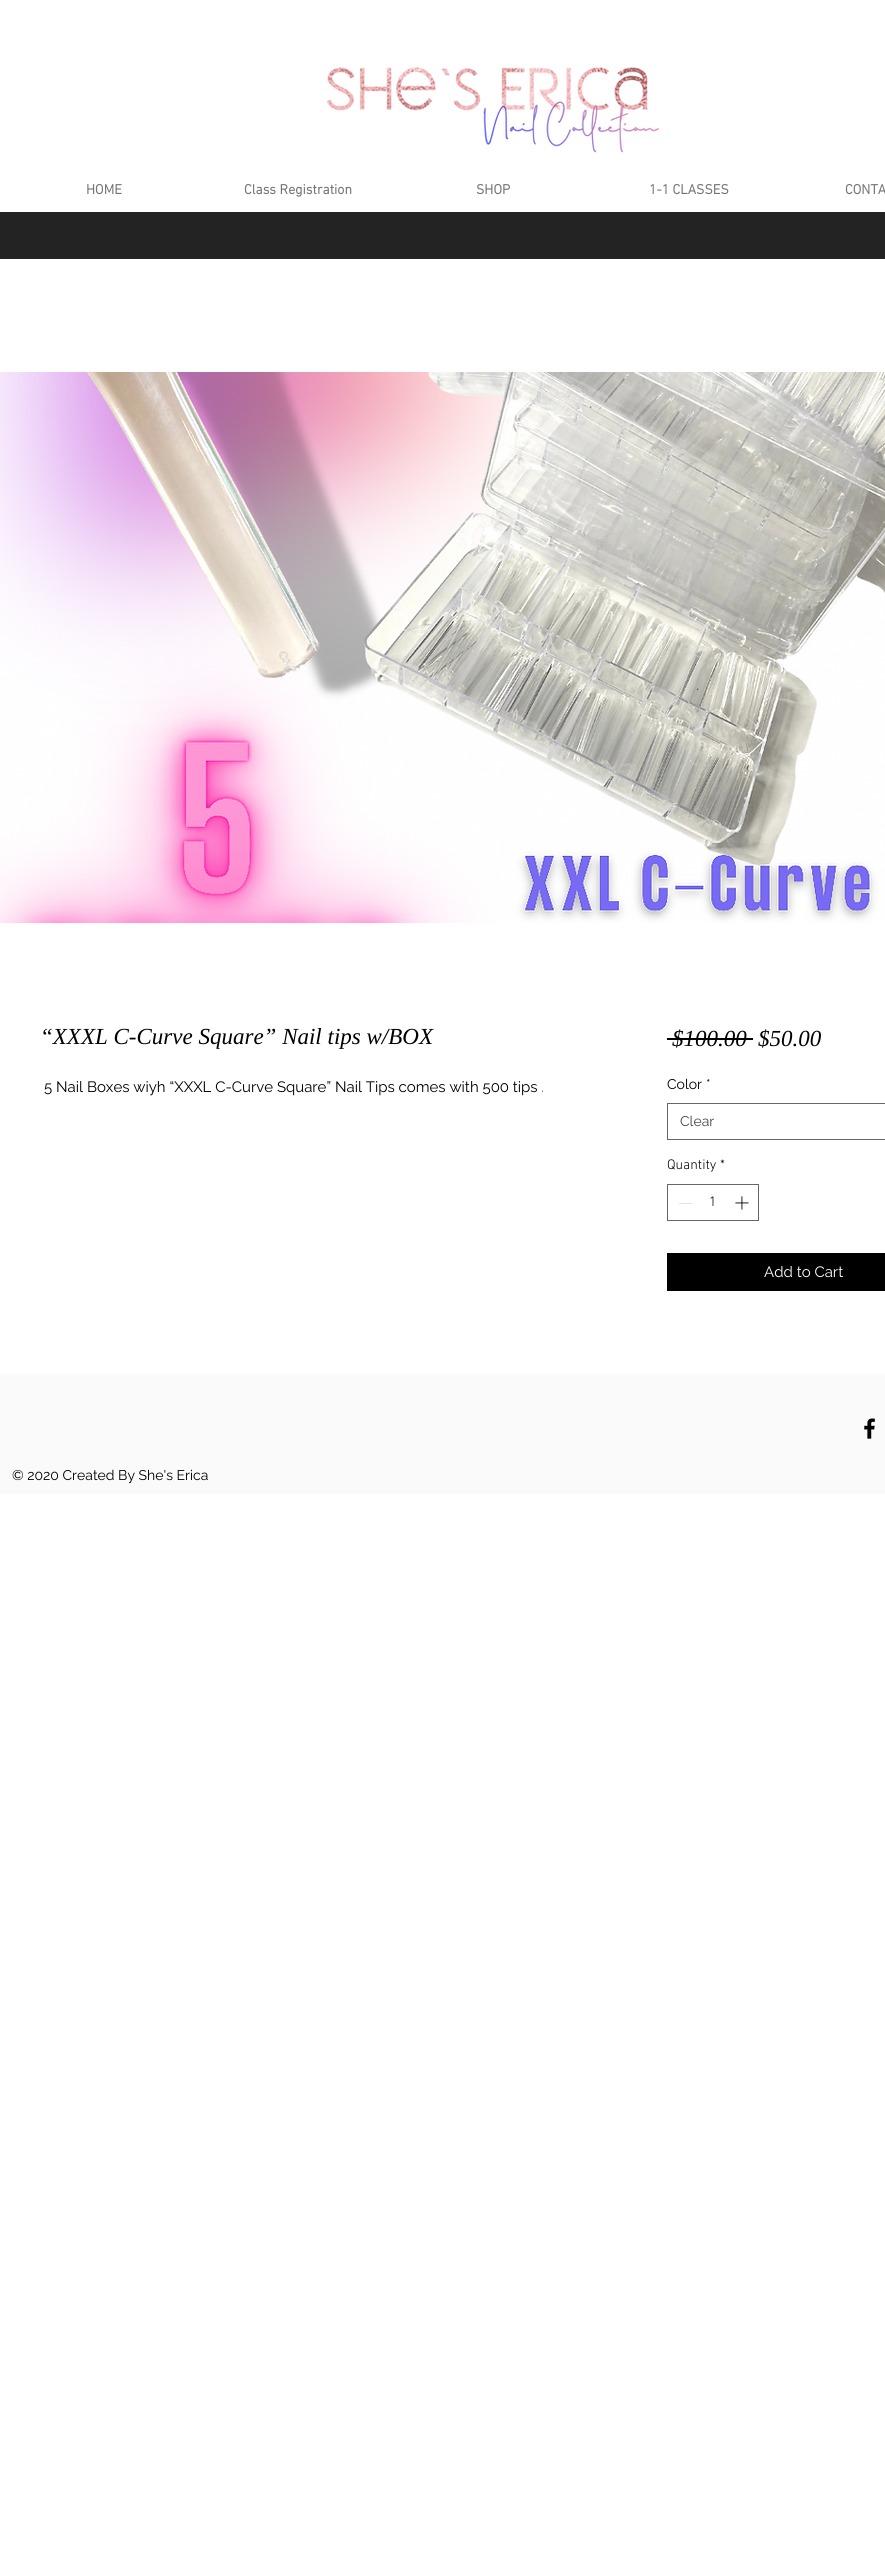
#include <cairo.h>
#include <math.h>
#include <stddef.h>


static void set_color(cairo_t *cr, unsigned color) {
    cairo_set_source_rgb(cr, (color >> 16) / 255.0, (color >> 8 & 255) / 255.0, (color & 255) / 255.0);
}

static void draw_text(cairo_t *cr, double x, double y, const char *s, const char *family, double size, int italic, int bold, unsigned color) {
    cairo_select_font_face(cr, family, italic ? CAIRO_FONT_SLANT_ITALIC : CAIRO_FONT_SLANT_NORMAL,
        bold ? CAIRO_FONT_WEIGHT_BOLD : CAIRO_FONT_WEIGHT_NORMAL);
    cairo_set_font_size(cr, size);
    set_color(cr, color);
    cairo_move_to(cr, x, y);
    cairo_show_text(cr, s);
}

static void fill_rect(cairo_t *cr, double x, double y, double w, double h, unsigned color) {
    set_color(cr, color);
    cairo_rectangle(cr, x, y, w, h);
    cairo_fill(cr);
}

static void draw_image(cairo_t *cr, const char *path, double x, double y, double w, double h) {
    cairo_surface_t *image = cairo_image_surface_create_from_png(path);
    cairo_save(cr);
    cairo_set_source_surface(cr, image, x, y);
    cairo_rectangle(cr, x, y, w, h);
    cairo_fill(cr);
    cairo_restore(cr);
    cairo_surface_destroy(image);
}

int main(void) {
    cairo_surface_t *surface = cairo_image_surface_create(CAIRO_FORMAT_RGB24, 885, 2575);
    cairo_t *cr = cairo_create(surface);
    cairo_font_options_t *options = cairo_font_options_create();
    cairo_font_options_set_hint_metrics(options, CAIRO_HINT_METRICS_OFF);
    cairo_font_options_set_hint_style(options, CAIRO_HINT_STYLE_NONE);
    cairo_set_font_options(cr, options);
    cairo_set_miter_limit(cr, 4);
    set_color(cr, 0xFFFFFF);
    cairo_paint(cr);
    draw_image(cr, "assets/img1.png", 326, 67, 333, 86);
    draw_text(cr, 86, 194, "HOME", "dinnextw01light", 14, 0, 1, 0x757575);
    draw_text(cr, 244, 194, "Class Registration", "dinnextw01light", 14, 0, 1, 0x757575);
    draw_text(cr, 476, 194, "SHOP", "dinnextw01light", 14, 0, 1, 0x757575);
    draw_text(cr, 649, 194, "1-1 CLASSES", "dinnextw01light", 14, 0, 1, 0x757575);
    draw_text(cr, 845, 194, "CONTA", "dinnextw01light", 14, 0, 1, 0x757575);
    fill_rect(cr, 0, 212, 885, 47, 0x242323);
    draw_image(cr, "assets/img2.png", 0, 372, 885, 551);
    draw_text(cr, 40, 1044, "“XXXL C-Curve Square” Nail tips w/BOX", "Liberation Serif", 23, 1, 0, 0x000000);
    draw_text(cr, 44, 1092, "5 Nail Boxes wiyh “XXXL C-Curve Square” Nail Tips comes with 500 tips .", "Raleway", 15, 0, 0, 0x000000);
    draw_text(cr, 672, 1046, "$100.00", "Liberation Serif", 23, 1, 0, 0x000000);
    fill_rect(cr, 667, 1038, 86, 2, 0x000000);
    draw_text(cr, 758, 1046, "$50.00", "Liberation Serif", 23, 1, 0, 0x000000);
    draw_text(cr, 667, 1089, "Color", "Raleway", 14, 0, 0, 0x000000);
    draw_text(cr, 706, 1089, "*", "Raleway", 14, 0, 0, 0x000000);
    cairo_rectangle(cr, 667.5, 1103.5, 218, 36);
    set_color(cr, 0x666666);
    cairo_set_line_width(cr, 1);
    cairo_stroke(cr);
    draw_text(cr, 680, 1126, "Clear", "Raleway", 14, 0, 0, 0x444444);
    draw_text(cr, 667, 1169, "Quantity", "dinnextw01light Light", 14, 0, 0, 0x000000);
    draw_text(cr, 720, 1169, "*", "dinnextw01light Light", 14, 0, 0, 0x000000);
    cairo_rectangle(cr, 667.5, 1184.5, 91, 36);
    set_color(cr, 0x666666);
    cairo_stroke(cr);
    fill_rect(cr, 679, 1203, 13, 1, 0xE3E3E3);
    draw_text(cr, 709, 1206, "1", "dinnextw01light Light", 14, 0, 0, 0x000000);
    draw_image(cr, "assets/img3.png", 735, 1196, 14, 14);
    fill_rect(cr, 667, 1253, 218, 38, 0x000000);
    draw_text(cr, 764, 1277, "Add to Cart", "Raleway", 15, 0, 0, 0xFFFFFF);
    fill_rect(cr, 0, 1374, 885, 120, 0xFAFAFA);
    draw_image(cr, "assets/img4.png", 864, 1418, 11, 21);
    draw_text(cr, 12, 1480, "© 2020 Created By She's Erica", "Raleway", 14, 0, 0, 0x000000);
    cairo_surface_write_to_png(surface, "output.png");
    cairo_font_options_destroy(options);
    cairo_destroy(cr);
    cairo_surface_destroy(surface);
    return 0;
}
